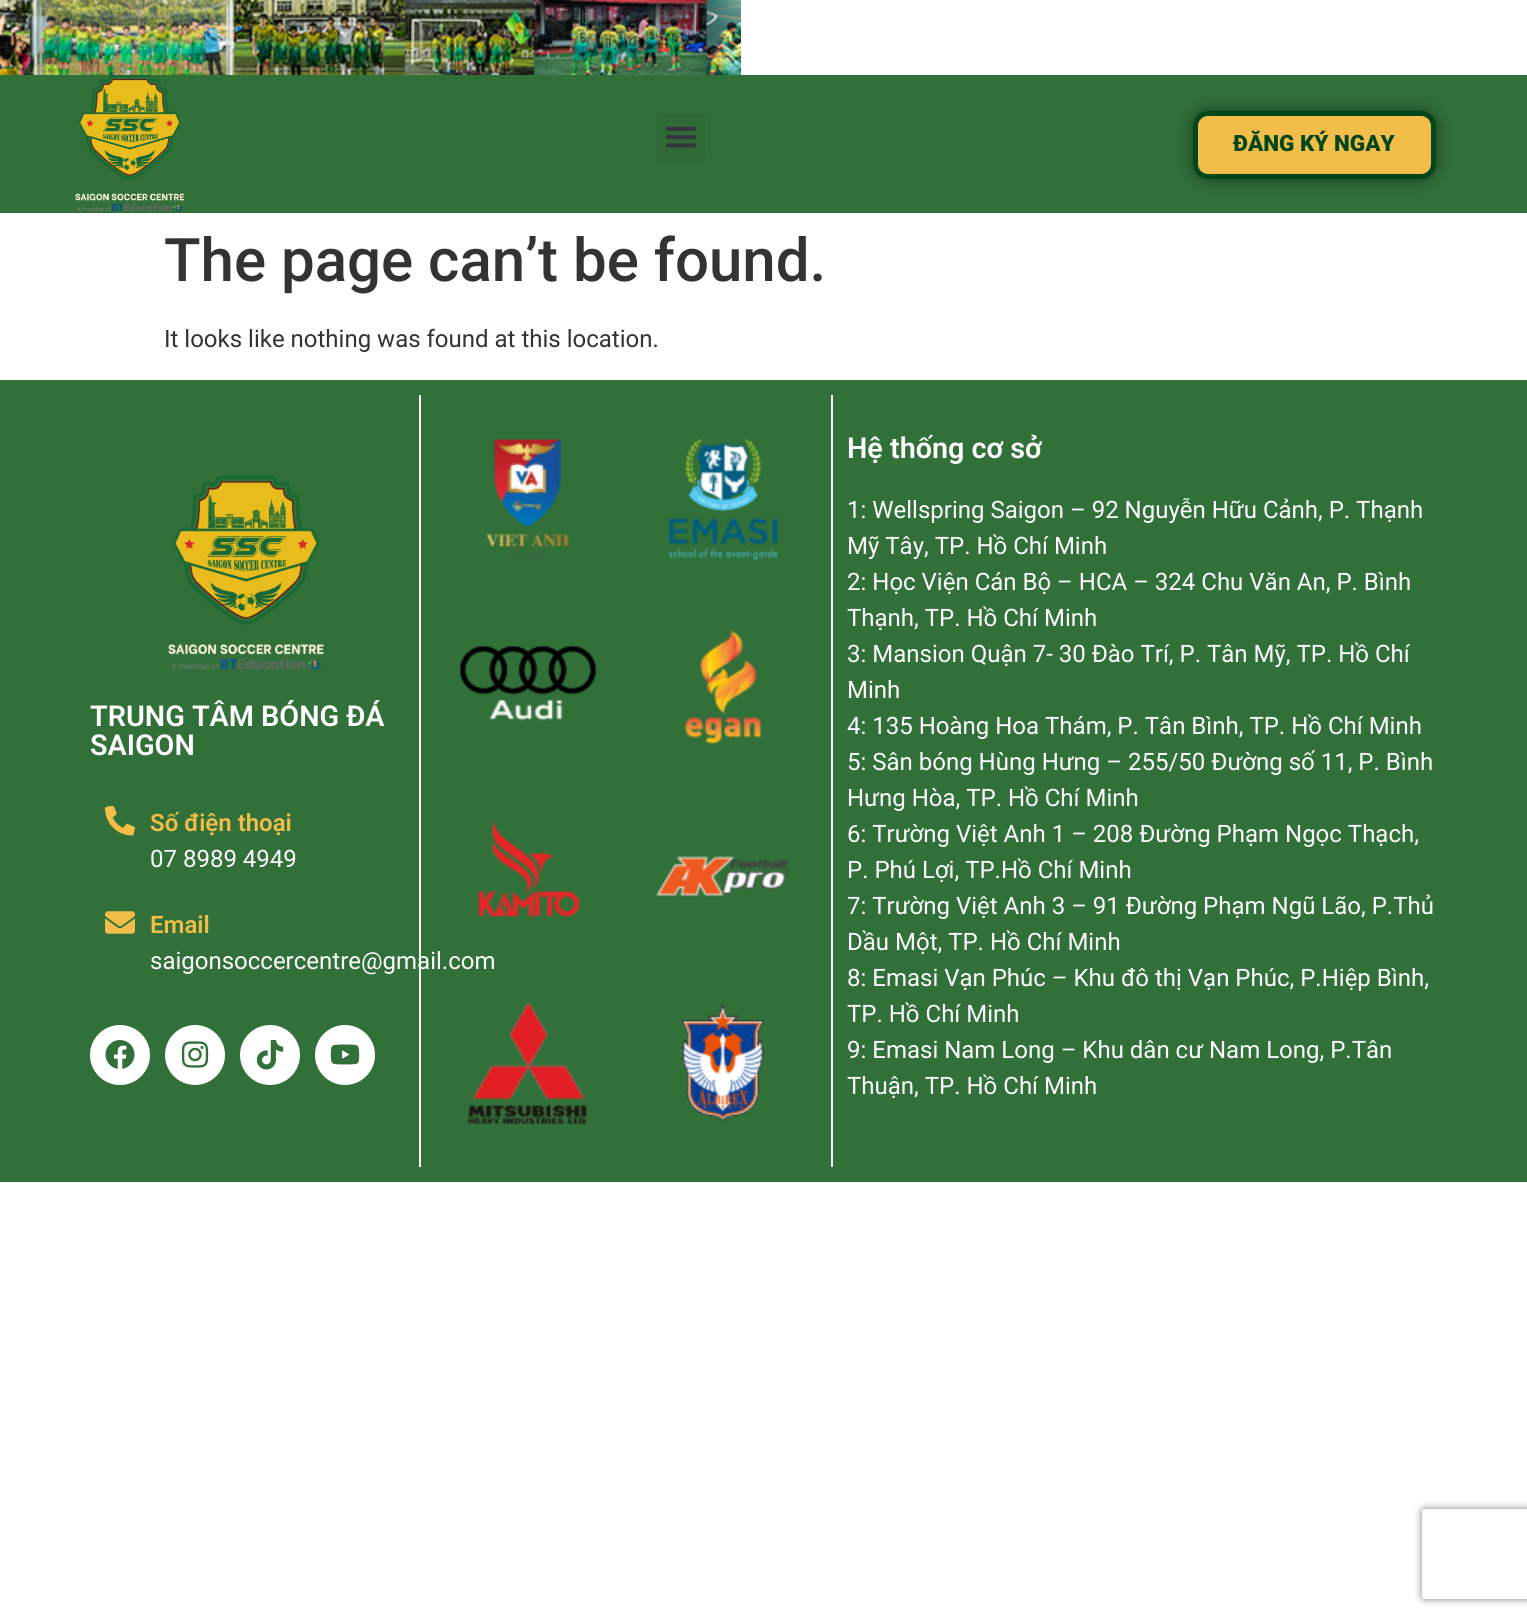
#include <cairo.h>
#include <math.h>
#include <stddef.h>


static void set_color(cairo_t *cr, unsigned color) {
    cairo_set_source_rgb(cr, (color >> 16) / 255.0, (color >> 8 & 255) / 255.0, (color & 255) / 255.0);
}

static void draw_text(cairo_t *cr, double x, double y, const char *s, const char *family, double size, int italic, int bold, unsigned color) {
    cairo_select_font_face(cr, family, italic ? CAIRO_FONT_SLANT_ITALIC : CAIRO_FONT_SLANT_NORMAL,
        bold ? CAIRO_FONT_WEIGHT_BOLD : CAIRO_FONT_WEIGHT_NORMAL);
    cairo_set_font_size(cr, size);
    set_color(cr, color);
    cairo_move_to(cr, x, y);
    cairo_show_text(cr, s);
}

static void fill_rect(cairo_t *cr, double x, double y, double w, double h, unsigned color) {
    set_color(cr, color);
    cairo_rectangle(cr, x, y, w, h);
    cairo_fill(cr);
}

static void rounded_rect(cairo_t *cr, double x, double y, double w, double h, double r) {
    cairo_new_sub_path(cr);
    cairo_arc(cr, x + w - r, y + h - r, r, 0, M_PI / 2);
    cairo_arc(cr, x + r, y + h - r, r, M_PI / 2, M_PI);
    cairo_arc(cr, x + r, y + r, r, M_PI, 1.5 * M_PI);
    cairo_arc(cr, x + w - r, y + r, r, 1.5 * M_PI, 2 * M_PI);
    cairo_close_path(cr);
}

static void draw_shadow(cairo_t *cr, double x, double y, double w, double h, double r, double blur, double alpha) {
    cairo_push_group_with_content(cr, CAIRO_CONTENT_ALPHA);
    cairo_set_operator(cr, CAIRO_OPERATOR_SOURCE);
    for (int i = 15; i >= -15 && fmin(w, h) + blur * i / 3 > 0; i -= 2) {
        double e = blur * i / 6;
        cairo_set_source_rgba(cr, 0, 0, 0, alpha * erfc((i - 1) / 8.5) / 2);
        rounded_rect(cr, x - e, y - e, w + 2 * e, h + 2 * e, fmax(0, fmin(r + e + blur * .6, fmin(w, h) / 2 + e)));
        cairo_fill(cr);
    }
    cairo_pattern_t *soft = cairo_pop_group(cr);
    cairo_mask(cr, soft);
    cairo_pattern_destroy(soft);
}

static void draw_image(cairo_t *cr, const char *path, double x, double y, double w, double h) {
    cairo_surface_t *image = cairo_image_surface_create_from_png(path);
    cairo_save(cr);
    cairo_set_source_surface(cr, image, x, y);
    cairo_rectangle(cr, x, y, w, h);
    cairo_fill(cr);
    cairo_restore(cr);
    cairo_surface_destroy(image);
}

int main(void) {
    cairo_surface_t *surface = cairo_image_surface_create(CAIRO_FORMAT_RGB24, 1527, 1620);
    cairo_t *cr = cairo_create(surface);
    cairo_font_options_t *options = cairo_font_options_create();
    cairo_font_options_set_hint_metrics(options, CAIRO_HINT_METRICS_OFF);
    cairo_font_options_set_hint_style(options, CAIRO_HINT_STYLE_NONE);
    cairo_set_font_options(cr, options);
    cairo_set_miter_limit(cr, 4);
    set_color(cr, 0xFFFFFF);
    cairo_paint(cr);
    draw_image(cr, "assets/img1.png", 0, 0, 741, 75);
    fill_rect(cr, 0, 75, 1527, 138, 0x317039);
    draw_image(cr, "assets/img2.png", 75, 75, 110, 137);
    set_color(cr, 0x2F6A36);
    rounded_rect(cr, 656, 113, 49, 49, 5);
    cairo_fill(cr);
    draw_image(cr, "assets/img3.png", 666, 126, 30, 22);
    set_color(cr, 0x000000);
    draw_shadow(cr, 1193, 111, 243, 68, 15, 7.5, 0.5);
    set_color(cr, 0xF3BD49);
    rounded_rect(cr, 1195.5, 113.5, 238, 63, 12.5);
    cairo_fill_preserve(cr);
    set_color(cr, 0x02471B);
    cairo_set_line_width(cr, 5);
    cairo_stroke(cr);
    draw_text(cr, 1233, 151, "ĐĂNG KÝ NGAY", "Roboto Black", 22.5, 0, 0, 0x02471B);
    draw_text(cr, 164, 281, "The page can’t be found.", "Roboto Medium", 60, 0, 0, 0x333333);
    draw_text(cr, 164, 347, "It looks like nothing was found at this location.", "Roboto", 24, 0, 0, 0x333333);
    fill_rect(cr, 0, 380, 1527, 802, 0x317039);
    fill_rect(cr, 419, 395, 2, 772, 0xFFFFFF);
    draw_image(cr, "assets/img4.png", 168, 475, 156, 195);
    draw_text(cr, 90, 726, "TRUNG TÂM BÓNG ĐÁ", "Roboto SemiBold", 28.75, 0, 0, 0xFFFFFF);
    draw_text(cr, 90, 755, "SAIGON", "Roboto SemiBold", 28.75, 0, 0, 0xFFFFFF);
    draw_image(cr, "assets/img5.png", 105, 806, 30, 30);
    draw_text(cr, 150, 831, "Số điện thoại", "Roboto SemiBold", 24, 0, 0, 0xF3BD49);
    draw_text(cr, 150, 867, "07 8989 4949", "Roboto", 24, 0, 0, 0xFFFFFF);
    draw_image(cr, "assets/img6.png", 105, 911, 30, 23);
    draw_text(cr, 150, 933, "Email", "Roboto SemiBold", 24, 0, 0, 0xF3BD49);
    draw_text(cr, 150, 969, "saigonsoccercentre@gmail.com", "Roboto", 24, 0, 0, 0xFFFFFF);
    cairo_new_path(cr);
    cairo_arc(cr, 120, 1055, 30, 0, 2 * M_PI);
    cairo_fill(cr);
    draw_image(cr, "assets/img7.png", 105, 1040, 30, 29);
    cairo_arc(cr, 195, 1055, 30, 0, 2 * M_PI);
    cairo_fill(cr);
    draw_image(cr, "assets/img8.png", 181, 1041, 28, 27);
    cairo_arc(cr, 270, 1055, 30, 0, 2 * M_PI);
    cairo_fill(cr);
    draw_image(cr, "assets/img9.png", 256, 1040, 28, 30);
    cairo_arc(cr, 345, 1055, 30, 0, 2 * M_PI);
    cairo_fill(cr);
    draw_image(cr, "assets/img10.png", 330, 1044, 30, 21);
    fill_rect(cr, 831, 395, 2, 772, 0xFFFFFF);
    draw_image(cr, "assets/img11.png", 486, 439, 83, 121);
    draw_image(cr, "assets/img12.png", 668, 439, 110, 121);
    draw_image(cr, "assets/img13.png", 459, 645, 138, 76);
    draw_image(cr, "assets/img14.png", 684, 630, 78, 115);
    draw_image(cr, "assets/img15.png", 478, 822, 103, 96);
    draw_image(cr, "assets/img16.png", 655, 856, 135, 41);
    draw_image(cr, "assets/img17.png", 467, 1001, 121, 124);
    draw_image(cr, "assets/img18.png", 679, 1003, 87, 119);
    draw_text(cr, 847, 458, "Hệ thống cơ sở", "Roboto SemiBold", 28.75, 0, 0, 0xFFFFFF);
    draw_text(cr, 847, 518, "1: Wellspring Saigon – 92 Nguyễn Hữu Cảnh, P. Thạnh", "Roboto", 24, 0, 0, 0xFFFFFF);
    draw_text(cr, 847, 554, "Mỹ Tây, TP. Hồ Chí Minh", "Roboto", 24, 0, 0, 0xFFFFFF);
    draw_text(cr, 847, 590, "2: Học Viện Cán Bộ – HCA – 324 Chu Văn An, P. Bình", "Roboto", 24, 0, 0, 0xFFFFFF);
    draw_text(cr, 847, 626, "Thạnh, TP. Hồ Chí Minh", "Roboto", 24, 0, 0, 0xFFFFFF);
    draw_text(cr, 847, 662, "3: Mansion Quận 7- 30 Đào Trí, P. Tân Mỹ, TP. Hồ Chí", "Roboto", 24, 0, 0, 0xFFFFFF);
    draw_text(cr, 847, 698, "Minh", "Roboto", 24, 0, 0, 0xFFFFFF);
    draw_text(cr, 847, 734, "4: 135 Hoàng Hoa Thám, P. Tân Bình, TP. Hồ Chí Minh", "Roboto", 24, 0, 0, 0xFFFFFF);
    draw_text(cr, 847, 770, "5: Sân bóng Hùng Hưng – 255/50 Đường số 11, P. Bình", "Roboto", 24, 0, 0, 0xFFFFFF);
    draw_text(cr, 847, 806, "Hưng Hòa, TP. Hồ Chí Minh", "Roboto", 24, 0, 0, 0xFFFFFF);
    draw_text(cr, 847, 842, "6: Trường Việt Anh 1 – 208 Đường Phạm Ngọc Thạch,", "Roboto", 24, 0, 0, 0xFFFFFF);
    draw_text(cr, 847, 878, "P. Phú Lợi, TP.Hồ Chí Minh", "Roboto", 24, 0, 0, 0xFFFFFF);
    draw_text(cr, 847, 914, "7: Trường Việt Anh 3 – 91 Đường Phạm Ngũ Lão, P.Thủ", "Roboto", 24, 0, 0, 0xFFFFFF);
    draw_text(cr, 847, 950, "Dầu Một, TP. Hồ Chí Minh", "Roboto", 24, 0, 0, 0xFFFFFF);
    draw_text(cr, 847, 986, "8: Emasi Vạn Phúc – Khu đô thị Vạn Phúc, P.Hiệp Bình,", "Roboto", 24, 0, 0, 0xFFFFFF);
    draw_text(cr, 847, 1022, "TP. Hồ Chí Minh", "Roboto", 24, 0, 0, 0xFFFFFF);
    draw_text(cr, 847, 1058, "9: Emasi Nam Long – Khu dân cư Nam Long, P.Tân", "Roboto", 24, 0, 0, 0xFFFFFF);
    draw_text(cr, 847, 1094, "Thuận, TP. Hồ Chí Minh", "Roboto", 24, 0, 0, 0xFFFFFF);
    cairo_save(cr);
    cairo_set_fill_rule(cr, CAIRO_FILL_RULE_EVEN_ODD);
    cairo_new_path(cr);
    cairo_move_to(cr, 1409, 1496);
    cairo_line_to(cr, 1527, 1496);
    cairo_line_to(cr, 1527, 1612);
    cairo_line_to(cr, 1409, 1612);
    cairo_close_path(cr);
    cairo_move_to(cr, 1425, 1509);
    cairo_line_to(cr, 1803, 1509);
    cairo_curve_to(cr, 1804.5, 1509, 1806, 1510.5, 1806, 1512);
    cairo_line_to(cr, 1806, 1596);
    cairo_curve_to(cr, 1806, 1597.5, 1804.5, 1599, 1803, 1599);
    cairo_line_to(cr, 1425, 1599);
    cairo_curve_to(cr, 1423.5, 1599, 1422, 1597.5, 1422, 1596);
    cairo_line_to(cr, 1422, 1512);
    cairo_curve_to(cr, 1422, 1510.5, 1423.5, 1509, 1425, 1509);
    cairo_close_path(cr);
    cairo_clip(cr);
    set_color(cr, 0x808080);
    draw_shadow(cr, 1422, 1509, 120, 90, 3, 4, 1);
    cairo_restore(cr);
    cairo_surface_write_to_png(surface, "output.png");
    cairo_font_options_destroy(options);
    cairo_destroy(cr);
    cairo_surface_destroy(surface);
    return 0;
}
